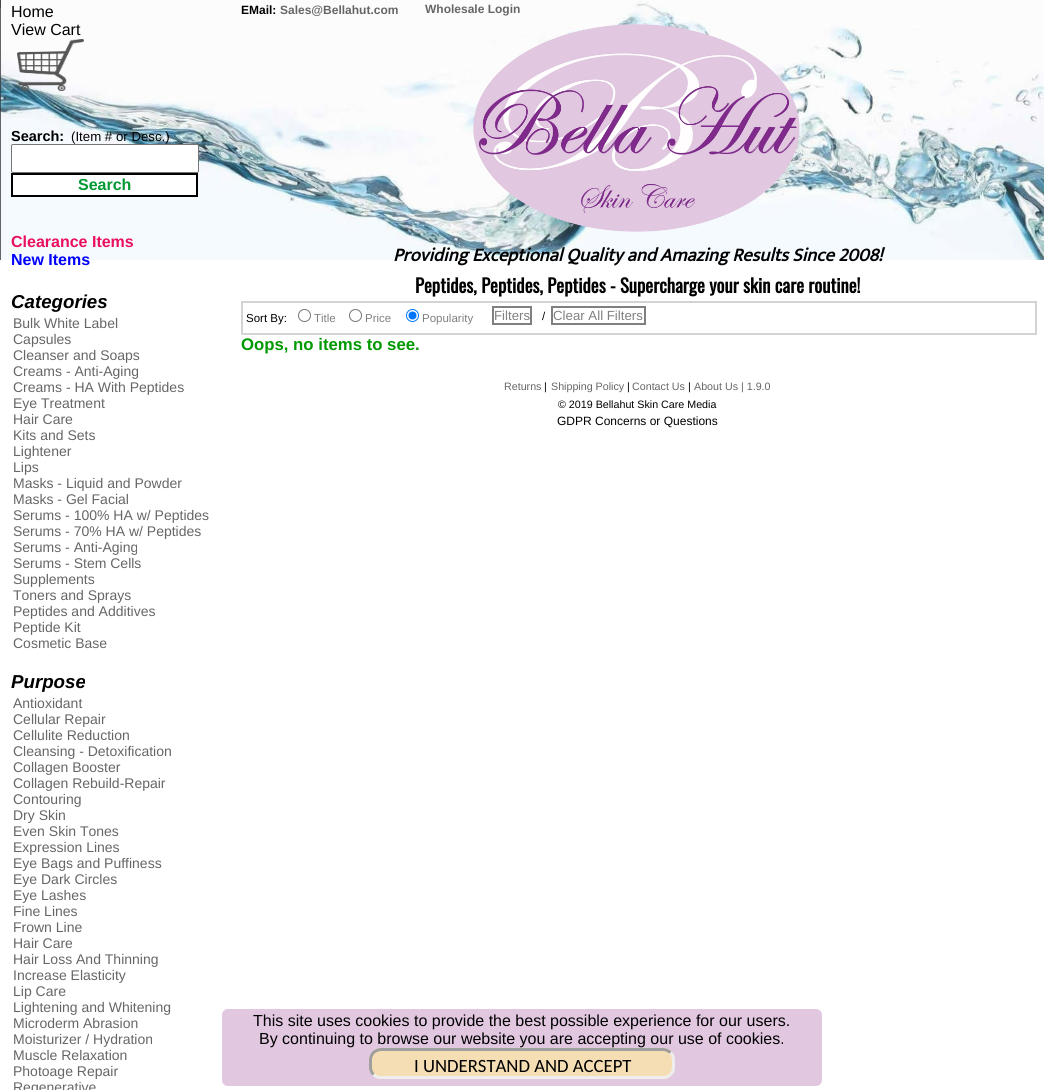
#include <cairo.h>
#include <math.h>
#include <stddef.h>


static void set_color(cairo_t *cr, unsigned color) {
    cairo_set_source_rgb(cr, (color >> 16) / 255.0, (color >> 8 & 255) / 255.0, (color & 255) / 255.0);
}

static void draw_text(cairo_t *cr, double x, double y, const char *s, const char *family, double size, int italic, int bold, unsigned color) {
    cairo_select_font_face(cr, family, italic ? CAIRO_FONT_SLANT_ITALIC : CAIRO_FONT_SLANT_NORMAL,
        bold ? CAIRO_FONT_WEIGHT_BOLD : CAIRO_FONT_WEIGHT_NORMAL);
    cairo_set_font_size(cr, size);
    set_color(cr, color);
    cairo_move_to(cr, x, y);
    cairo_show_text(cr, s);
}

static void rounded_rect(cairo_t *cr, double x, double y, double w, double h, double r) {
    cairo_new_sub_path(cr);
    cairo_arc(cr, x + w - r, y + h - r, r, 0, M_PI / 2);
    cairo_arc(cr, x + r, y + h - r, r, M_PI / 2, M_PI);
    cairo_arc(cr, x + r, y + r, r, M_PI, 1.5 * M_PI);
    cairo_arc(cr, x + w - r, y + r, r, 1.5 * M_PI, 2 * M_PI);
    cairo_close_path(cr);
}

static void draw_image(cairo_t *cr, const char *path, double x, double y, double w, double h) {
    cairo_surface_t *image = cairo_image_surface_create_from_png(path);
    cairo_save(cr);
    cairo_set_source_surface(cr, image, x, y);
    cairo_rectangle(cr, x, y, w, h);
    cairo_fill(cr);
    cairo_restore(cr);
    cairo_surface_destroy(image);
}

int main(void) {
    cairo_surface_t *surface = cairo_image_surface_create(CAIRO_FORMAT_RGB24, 1044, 1090);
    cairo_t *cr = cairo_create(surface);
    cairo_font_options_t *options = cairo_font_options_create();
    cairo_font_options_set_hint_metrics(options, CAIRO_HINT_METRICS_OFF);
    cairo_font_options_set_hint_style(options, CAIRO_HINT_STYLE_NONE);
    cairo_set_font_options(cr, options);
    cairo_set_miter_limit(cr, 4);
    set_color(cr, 0xFFFFFF);
    cairo_paint(cr);
    draw_image(cr, "assets/img1.png", 0, 0, 1044, 260);
    draw_text(cr, 11, 17, "Home", "Liberation Sans", 16, 0, 0, 0x000000);
    draw_text(cr, 11, 35, "View Cart", "Liberation Sans", 16, 0, 0, 0x000000);
    draw_image(cr, "assets/img2.png", 17, 39, 67, 52);
    draw_text(cr, 11, 141, "Search:", "Liberation Sans", 14.5, 0, 1, 0x000000);
    draw_text(cr, 71, 141, "(Item # or Desc.)", "Liberation Sans", 13.25, 0, 0, 0x000000);
    set_color(cr, 0xFFFFFF);
    rounded_rect(cr, 11.5, 144.5, 187, 28, 1.5);
    cairo_fill_preserve(cr);
    set_color(cr, 0x767676);
    cairo_set_line_width(cr, 1);
    cairo_stroke(cr);
    set_color(cr, 0xFFFFFF);
    cairo_rectangle(cr, 12, 174, 185, 22);
    cairo_fill_preserve(cr);
    set_color(cr, 0x000000);
    cairo_set_line_width(cr, 2);
    cairo_stroke(cr);
    draw_text(cr, 78, 190, "Search", "Liberation Sans", 16, 0, 1, 0x009933);
    draw_text(cr, 11, 247, "Clearance Items", "Liberation Sans", 16, 0, 1, 0xEA0F61);
    draw_text(cr, 11, 265, "New Items", "Liberation Sans", 16, 0, 1, 0x0000FF);
    draw_text(cr, 11, 308, "Categories", "Liberation Sans", 18.7, 1, 1, 0x000000);
    draw_text(cr, 13, 328, "Bulk White Label", "Liberation Sans", 14, 0, 0, 0x666666);
    draw_text(cr, 13, 344, "Capsules", "Liberation Sans", 14, 0, 0, 0x666666);
    draw_text(cr, 13, 360, "Cleanser and Soaps", "Liberation Sans", 14, 0, 0, 0x666666);
    draw_text(cr, 13, 376, "Creams - Anti-Aging", "Liberation Sans", 14, 0, 0, 0x666666);
    draw_text(cr, 13, 392, "Creams - HA With Peptides", "Liberation Sans", 14, 0, 0, 0x666666);
    draw_text(cr, 13, 408, "Eye Treatment", "Liberation Sans", 14, 0, 0, 0x666666);
    draw_text(cr, 13, 424, "Hair Care", "Liberation Sans", 14, 0, 0, 0x666666);
    draw_text(cr, 13, 440, "Kits and Sets", "Liberation Sans", 14, 0, 0, 0x666666);
    draw_text(cr, 13, 456, "Lightener", "Liberation Sans", 14, 0, 0, 0x666666);
    draw_text(cr, 13, 472, "Lips", "Liberation Sans", 14, 0, 0, 0x666666);
    draw_text(cr, 13, 488, "Masks - Liquid and Powder", "Liberation Sans", 14, 0, 0, 0x666666);
    draw_text(cr, 13, 504, "Masks - Gel Facial", "Liberation Sans", 14, 0, 0, 0x666666);
    draw_text(cr, 13, 520, "Serums - 100% HA w/ Peptides", "Liberation Sans", 14, 0, 0, 0x666666);
    draw_text(cr, 13, 536, "Serums - 70% HA w/ Peptides", "Liberation Sans", 14, 0, 0, 0x666666);
    draw_text(cr, 13, 552, "Serums - Anti-Aging", "Liberation Sans", 14, 0, 0, 0x666666);
    draw_text(cr, 13, 568, "Serums - Stem Cells", "Liberation Sans", 14, 0, 0, 0x666666);
    draw_text(cr, 13, 584, "Supplements", "Liberation Sans", 14, 0, 0, 0x666666);
    draw_text(cr, 13, 600, "Toners and Sprays", "Liberation Sans", 14, 0, 0, 0x666666);
    draw_text(cr, 13, 616, "Peptides and Additives", "Liberation Sans", 14, 0, 0, 0x666666);
    draw_text(cr, 13, 632, "Peptide Kit", "Liberation Sans", 14, 0, 0, 0x666666);
    draw_text(cr, 13, 648, "Cosmetic Base", "Liberation Sans", 14, 0, 0, 0x666666);
    draw_text(cr, 11, 688, "Purpose", "Liberation Sans", 18.7, 1, 1, 0x000000);
    draw_text(cr, 13, 708, "Antioxidant", "Liberation Sans", 14, 0, 0, 0x666666);
    draw_text(cr, 13, 724, "Cellular Repair", "Liberation Sans", 14, 0, 0, 0x666666);
    draw_text(cr, 13, 740, "Cellulite Reduction", "Liberation Sans", 14, 0, 0, 0x666666);
    draw_text(cr, 13, 756, "Cleansing - Detoxification", "Liberation Sans", 14, 0, 0, 0x666666);
    draw_text(cr, 13, 772, "Collagen Booster", "Liberation Sans", 14, 0, 0, 0x666666);
    draw_text(cr, 13, 788, "Collagen Rebuild-Repair", "Liberation Sans", 14, 0, 0, 0x666666);
    draw_text(cr, 13, 804, "Contouring", "Liberation Sans", 14, 0, 0, 0x666666);
    draw_text(cr, 13, 820, "Dry Skin", "Liberation Sans", 14, 0, 0, 0x666666);
    draw_text(cr, 13, 836, "Even Skin Tones", "Liberation Sans", 14, 0, 0, 0x666666);
    draw_text(cr, 13, 852, "Expression Lines", "Liberation Sans", 14, 0, 0, 0x666666);
    draw_text(cr, 13, 868, "Eye Bags and Puffiness", "Liberation Sans", 14, 0, 0, 0x666666);
    draw_text(cr, 13, 884, "Eye Dark Circles", "Liberation Sans", 14, 0, 0, 0x666666);
    draw_text(cr, 13, 900, "Eye Lashes", "Liberation Sans", 14, 0, 0, 0x666666);
    draw_text(cr, 13, 916, "Fine Lines", "Liberation Sans", 14, 0, 0, 0x666666);
    draw_text(cr, 13, 932, "Frown Line", "Liberation Sans", 14, 0, 0, 0x666666);
    draw_text(cr, 13, 948, "Hair Care", "Liberation Sans", 14, 0, 0, 0x666666);
    draw_text(cr, 13, 964, "Hair Loss And Thinning", "Liberation Sans", 14, 0, 0, 0x666666);
    draw_text(cr, 13, 980, "Increase Elasticity", "Liberation Sans", 14, 0, 0, 0x666666);
    draw_text(cr, 13, 996, "Lip Care", "Liberation Sans", 14, 0, 0, 0x666666);
    draw_text(cr, 13, 1012, "Lightening and Whitening", "Liberation Sans", 14, 0, 0, 0x666666);
    draw_text(cr, 13, 1028, "Microderm Abrasion", "Liberation Sans", 14, 0, 0, 0x666666);
    draw_text(cr, 13, 1044, "Moisturizer / Hydration", "Liberation Sans", 14, 0, 0, 0x666666);
    draw_text(cr, 13, 1060, "Muscle Relaxation", "Liberation Sans", 14, 0, 0, 0x666666);
    draw_text(cr, 13, 1076, "Photoage Repair", "Liberation Sans", 14, 0, 0, 0x666666);
    draw_text(cr, 13, 1092, "Regenerative", "Liberation Sans", 14, 0, 0, 0x666666);
    draw_text(cr, 241, 14, "EMail:", "Liberation Sans", 12, 0, 1, 0x000000);
    draw_text(cr, 280, 14, "Sales@Bellahut.com", "Liberation Sans", 12, 0, 1, 0x666666);
    draw_text(cr, 425, 13, "Wholesale Login", "Liberation Sans", 12, 0, 1, 0x666666);
    draw_image(cr, "assets/img3.png", 473, 24, 327, 208);
    draw_text(cr, 393, 261, "Providing Exceptional Quality and Amazing Results Since 2008!", "Mukta", 18.7, 1, 1, 0x000000);
    draw_text(cr, 415, 293, "Peptides, Peptides, Peptides - Supercharge your skin care routine!", "Oswald", 18.7, 0, 1, 0x000000);
    cairo_rectangle(cr, 242, 302, 794, 32);
    set_color(cr, 0xD3D3D3);
    cairo_stroke(cr);
    draw_text(cr, 246, 322, "Sort By:", "Liberation Sans", 11.5, 0, 0, 0x000000);
    cairo_new_path(cr);
    cairo_arc(cr, 304.5, 315.5, 6, 0, 2 * M_PI);
    set_color(cr, 0x767676);
    cairo_set_line_width(cr, 1);
    cairo_stroke(cr);
    draw_text(cr, 314, 322, "Title", "Liberation Sans", 11.5, 0, 0, 0x808080);
    cairo_new_path(cr);
    cairo_arc(cr, 355.5, 315.5, 6, 0, 2 * M_PI);
    set_color(cr, 0x767676);
    cairo_stroke(cr);
    draw_text(cr, 365, 322, "Price", "Liberation Sans", 11.5, 0, 0, 0x808080);
    cairo_new_path(cr);
    cairo_arc(cr, 412.5, 315.5, 6, 0, 2 * M_PI);
    set_color(cr, 0x0075FF);
    cairo_stroke(cr);
    cairo_arc(cr, 412.5, 315.5, 4, 0, 2 * M_PI);
    cairo_fill(cr);
    draw_text(cr, 422, 322, "Popularity", "Liberation Sans", 11.5, 0, 0, 0x808080);
    cairo_rectangle(cr, 493, 307, 38, 17);
    cairo_set_line_width(cr, 2);
    cairo_stroke(cr);
    draw_text(cr, 494, 320, "Filters", "Liberation Sans", 13.25, 0, 0, 0x808080);
    draw_text(cr, 542, 320, "/", "Liberation Sans", 11.5, 0, 0, 0x000000);
    cairo_rectangle(cr, 552, 307, 93, 17);
    set_color(cr, 0x808080);
    cairo_stroke(cr);
    draw_text(cr, 553, 320, "Clear All Filters", "Liberation Sans", 13.25, 0, 0, 0x808080);
    draw_text(cr, 241, 350, "Oops, no items to see.", "Liberation Sans", 16.75, 0, 1, 0x009900);
    draw_text(cr, 504, 390, "Returns", "Liberation Sans", 10.7, 0, 0, 0x666666);
    draw_text(cr, 544, 390, "|", "Liberation Sans", 10.7, 0, 0, 0x000000);
    draw_text(cr, 551, 390, "Shipping Policy", "Liberation Sans", 10.7, 0, 0, 0x666666);
    draw_text(cr, 627, 390, "|", "Liberation Sans", 10.7, 0, 0, 0x000000);
    draw_text(cr, 632, 390, "Contact Us", "Liberation Sans", 10.7, 0, 0, 0x666666);
    draw_text(cr, 688, 390, "|", "Liberation Sans", 10.7, 0, 0, 0x000000);
    draw_text(cr, 694, 390, "About Us | 1.9.0", "Liberation Sans", 10.7, 0, 0, 0x666666);
    draw_text(cr, 558, 408, "© 2019 Bellahut Skin Care Media", "Liberation Sans", 10.7, 0, 0, 0x000000);
    draw_text(cr, 557, 425, "GDPR Concerns or Questions", "Liberation Sans", 12, 0, 0, 0x000000);
    set_color(cr, 0xE1C7E0);
    rounded_rect(cr, 222, 1009, 600, 77, 6);
    cairo_fill(cr);
    draw_text(cr, 253, 1026, "This site uses cookies to provide the best possible experience for our users.", "Liberation Sans", 16, 0, 0, 0x000000);
    draw_text(cr, 259, 1044, "By continuing to browse our website you are accepting our use of cookies.", "Liberation Sans", 16, 0, 0, 0x000000);
    set_color(cr, 0xF5DEB3);
    rounded_rect(cr, 369, 1048, 306, 31, 12);
    cairo_fill(cr);
    cairo_new_path(cr);
    cairo_move_to(cr, 670.5, 1052.5);
    cairo_curve_to(cr, 672.5, 1054.5, 673.5, 1057.5, 673.5, 1060);
    cairo_line_to(cr, 673.5, 1067);
    cairo_curve_to(cr, 673.5, 1070, 672.5, 1072.5, 670.5, 1074.5);
    cairo_curve_to(cr, 668.5, 1076.5, 666, 1077.5, 663, 1077.5);
    cairo_line_to(cr, 381, 1077.5);
    cairo_curve_to(cr, 378, 1077.5, 375.5, 1076.5, 373.5, 1074.5);
    set_color(cr, 0xEEEEEE);
    cairo_set_line_width(cr, 3);
    cairo_stroke(cr);
    cairo_new_path(cr);
    cairo_move_to(cr, 373.5, 1074.5);
    cairo_curve_to(cr, 371.5, 1072.5, 370.5, 1070, 370.5, 1067);
    cairo_line_to(cr, 370.5, 1060);
    cairo_curve_to(cr, 370.5, 1057.5, 371.5, 1054.5, 373.5, 1052.5);
    cairo_curve_to(cr, 375.5, 1051, 378, 1049.5, 381, 1049.5);
    cairo_line_to(cr, 663, 1049.5);
    cairo_curve_to(cr, 666, 1049.5, 668.5, 1051, 670.5, 1052.5);
    set_color(cr, 0x9F9F9F);
    cairo_stroke(cr);
    draw_text(cr, 414, 1072, "I UNDERSTAND AND ACCEPT", "Carlito", 18.7, 0, 0, 0x000000);
    cairo_surface_write_to_png(surface, "output.png");
    cairo_font_options_destroy(options);
    cairo_destroy(cr);
    cairo_surface_destroy(surface);
    return 0;
}
